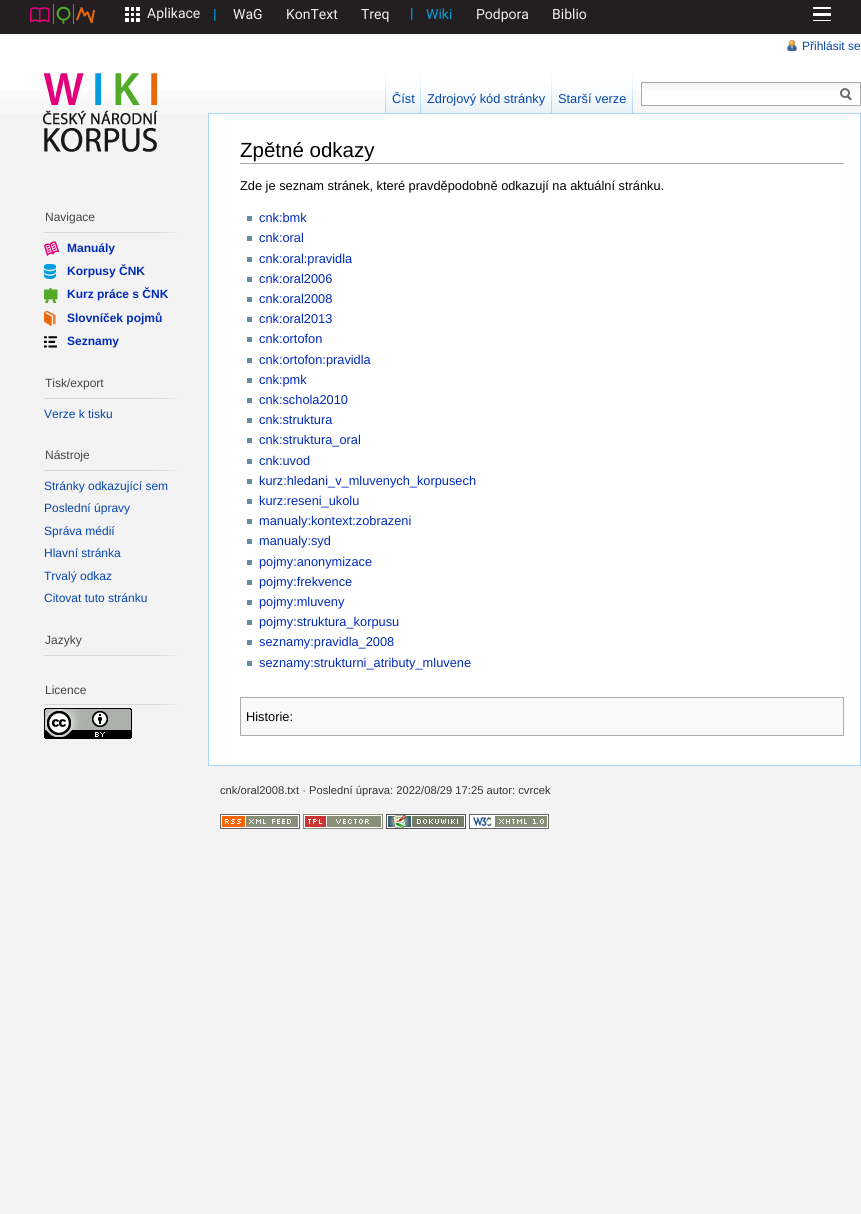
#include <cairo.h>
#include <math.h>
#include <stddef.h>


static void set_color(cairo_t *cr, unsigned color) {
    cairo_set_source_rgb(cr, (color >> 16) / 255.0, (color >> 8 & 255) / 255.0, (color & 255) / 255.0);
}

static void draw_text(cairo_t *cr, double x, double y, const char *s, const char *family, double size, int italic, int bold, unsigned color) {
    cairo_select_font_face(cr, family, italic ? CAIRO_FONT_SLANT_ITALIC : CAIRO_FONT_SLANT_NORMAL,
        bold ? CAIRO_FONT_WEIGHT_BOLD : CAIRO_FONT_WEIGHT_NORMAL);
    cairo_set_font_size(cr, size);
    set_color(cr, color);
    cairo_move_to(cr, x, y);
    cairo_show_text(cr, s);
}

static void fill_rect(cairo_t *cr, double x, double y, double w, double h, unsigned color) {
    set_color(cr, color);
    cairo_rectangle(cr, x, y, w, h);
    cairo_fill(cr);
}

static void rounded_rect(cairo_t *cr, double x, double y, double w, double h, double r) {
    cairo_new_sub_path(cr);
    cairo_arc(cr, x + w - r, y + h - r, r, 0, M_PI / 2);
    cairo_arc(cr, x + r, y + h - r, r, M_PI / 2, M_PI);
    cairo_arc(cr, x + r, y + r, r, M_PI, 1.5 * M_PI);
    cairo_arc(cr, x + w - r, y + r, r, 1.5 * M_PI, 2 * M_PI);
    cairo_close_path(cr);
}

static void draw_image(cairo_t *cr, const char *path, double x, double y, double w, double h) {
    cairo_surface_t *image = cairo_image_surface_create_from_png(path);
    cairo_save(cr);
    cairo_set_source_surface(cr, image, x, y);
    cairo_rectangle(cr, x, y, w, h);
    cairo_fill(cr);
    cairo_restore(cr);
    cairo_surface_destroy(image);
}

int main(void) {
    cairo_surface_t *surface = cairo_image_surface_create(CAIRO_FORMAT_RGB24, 861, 1214);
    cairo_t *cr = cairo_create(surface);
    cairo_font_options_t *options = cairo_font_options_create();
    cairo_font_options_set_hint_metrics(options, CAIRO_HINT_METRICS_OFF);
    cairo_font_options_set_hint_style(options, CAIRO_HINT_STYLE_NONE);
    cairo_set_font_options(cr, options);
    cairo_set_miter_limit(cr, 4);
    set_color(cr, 0xF3F3F3);
    cairo_paint(cr);
    fill_rect(cr, 0, 0, 861, 34, 0x231F20);
    draw_image(cr, "assets/img1.png", 30, 4, 65, 20);
    draw_image(cr, "assets/img2.png", 125, 7, 15, 15);
    draw_text(cr, 147, 18, "Aplikace", "Roboto", 14, 0, 0, 0xEEEEEE);
    draw_text(cr, 213, 19, "|", "Roboto", 14, 0, 1, 0x009EE0);
    draw_text(cr, 233, 19, "WaG", "Roboto", 14, 0, 0, 0xEEEEEE);
    draw_text(cr, 286, 19, "KonText", "Roboto", 14, 0, 0, 0xEEEEEE);
    draw_text(cr, 361, 19, "Treq", "Roboto", 14, 0, 0, 0xEEEEEE);
    draw_text(cr, 410, 18, "|", "Roboto", 14, 0, 1, 0x009EE0);
    draw_text(cr, 426, 19, "Wiki", "Roboto", 14, 0, 0, 0x009EE0);
    draw_text(cr, 476, 19, "Podpora", "Roboto", 14, 0, 0, 0xEEEEEE);
    draw_text(cr, 552, 19, "Biblio", "Roboto", 14, 0, 0, 0xEEEEEE);
    set_color(cr, 0xFFFFFF);
    rounded_rect(cr, 813, 7, 18, 2, 0.5);
    cairo_fill(cr);
    rounded_rect(cr, 813, 13, 18, 3, 0.5);
    cairo_fill(cr);
    cairo_new_path(cr);
    cairo_move_to(cr, 813.5, 20);
    cairo_line_to(cr, 830.5, 20);
    cairo_curve_to(cr, 831, 20, 831, 20, 831, 20.5);
    cairo_line_to(cr, 831, 21);
    cairo_line_to(cr, 813, 21);
    cairo_line_to(cr, 813, 20.5);
    cairo_curve_to(cr, 813, 20, 813, 20, 813.5, 20);
    cairo_close_path(cr);
    cairo_fill(cr);
    fill_rect(cr, 0, 34, 861, 57, 0xFFFFFF);
    draw_image(cr, "assets/img3.png", 0, 91, 861, 23);
    draw_image(cr, "assets/img4.png", 787, 40, 10, 11);
    draw_text(cr, 802, 50, "Přihlásit se", "Liberation Sans", 12, 0, 0, 0x0645AD);
    draw_image(cr, "assets/img5.png", 385, 74, 1, 39);
    fill_rect(cr, 208, 113, 653, 1, 0xA7D7F9);
    draw_image(cr, "assets/img6.png", 386, 74, 35, 40);
    draw_image(cr, "assets/img5.png", 420, 74, 1, 39);
    draw_text(cr, 392, 103, "Číst", "Liberation Sans", 12.8, 0, 0, 0x0645AD);
    draw_image(cr, "assets/img7.png", 421, 74, 131, 40);
    draw_image(cr, "assets/img5.png", 551, 74, 1, 39);
    draw_text(cr, 427, 103, "Zdrojový kód stránky", "Liberation Sans", 12.8, 0, 0, 0x0645AD);
    draw_image(cr, "assets/img8.png", 552, 74, 81, 40);
    draw_image(cr, "assets/img5.png", 632, 74, 1, 39);
    draw_text(cr, 558, 103, "Starší verze", "Liberation Sans", 12.8, 0, 0, 0x0645AD);
    fill_rect(cr, 642, 91, 218, 14, 0xFFFFFF);
    draw_image(cr, "assets/img9.png", 642, 83, 218, 8);
    cairo_rectangle(cr, 641.5, 82.5, 219, 23);
    set_color(cr, 0xAAAAAA);
    cairo_set_line_width(cr, 1);
    cairo_stroke(cr);
    draw_image(cr, "assets/img10.png", 840, 88, 12, 13);
    draw_image(cr, "assets/img11.png", 43, 73, 115, 79);
    draw_text(cr, 45, 221, "Navigace", "Liberation Sans", 12, 0, 0, 0x444444);
    draw_image(cr, "assets/img12.png", 44, 232, 134, 1);
    draw_image(cr, "assets/img13.png", 44, 241, 15, 15);
    draw_text(cr, 67, 252, "Manuály", "Liberation Sans", 12, 0, 1, 0x002BB8);
    draw_image(cr, "assets/img14.png", 44, 264, 12, 15);
    draw_text(cr, 67, 275, "Korpusy ČNK", "Liberation Sans", 12, 0, 1, 0x002BB8);
    draw_image(cr, "assets/img15.png", 44, 288, 14, 15);
    draw_text(cr, 67, 298, "Kurz práce s ČNK", "Liberation Sans", 12, 0, 1, 0x002BB8);
    draw_image(cr, "assets/img16.png", 44, 311, 12, 15);
    draw_text(cr, 67, 322, "Slovníček pojmů", "Liberation Sans", 12, 0, 1, 0x002BB8);
    draw_image(cr, "assets/img17.png", 44, 336, 13, 12);
    draw_text(cr, 67, 345, "Seznamy", "Liberation Sans", 12, 0, 1, 0x002BB8);
    draw_text(cr, 45, 387, "Tisk/export", "Liberation Sans", 12, 0, 0, 0x444444);
    draw_image(cr, "assets/img12.png", 44, 398, 134, 1);
    draw_text(cr, 44, 418, "Verze k tisku", "Liberation Sans", 12, 0, 0, 0x0645AD);
    draw_text(cr, 45, 459, "Nástroje", "Liberation Sans", 12, 0, 0, 0x444444);
    draw_image(cr, "assets/img12.png", 44, 470, 134, 1);
    draw_text(cr, 44, 490, "Stránky odkazující sem", "Liberation Sans", 12, 0, 0, 0x0645AD);
    draw_text(cr, 44, 512, "Poslední úpravy", "Liberation Sans", 12, 0, 0, 0x0645AD);
    draw_text(cr, 44, 535, "Správa médií", "Liberation Sans", 12, 0, 0, 0x0645AD);
    draw_text(cr, 44, 557, "Hlavní stránka", "Liberation Sans", 12, 0, 0, 0x0645AD);
    draw_text(cr, 44, 580, "Trvalý odkaz", "Liberation Sans", 12, 0, 0, 0x0645AD);
    draw_text(cr, 44, 602, "Citovat tuto stránku", "Liberation Sans", 12, 0, 0, 0x0645AD);
    draw_text(cr, 45, 644, "Jazyky", "Liberation Sans", 12, 0, 0, 0x444444);
    draw_image(cr, "assets/img12.png", 44, 655, 134, 1);
    draw_text(cr, 45, 694, "Licence", "Liberation Sans", 12, 0, 0, 0x444444);
    draw_image(cr, "assets/img12.png", 44, 704, 134, 1);
    draw_image(cr, "assets/img18.png", 44, 708, 88, 31);
    fill_rect(cr, 209, 114, 651, 651, 0xFFFFFF);
    fill_rect(cr, 208, 114, 1, 651, 0xA7D7F9);
    fill_rect(cr, 860, 114, 1, 651, 0xA7D7F9);
    fill_rect(cr, 240, 163, 604, 1, 0xAAAAAA);
    draw_text(cr, 240, 157, "Zpětné odkazy", "Liberation Sans", 20.5, 0, 0, 0x000000);
    draw_text(cr, 240, 190, "Zde je seznam stránek, které pravděpodobně odkazují na aktuální stránku.", "Liberation Sans", 12.8, 0, 0, 0x000000);
    fill_rect(cr, 247, 216, 5, 5, 0x638C9C);
    draw_text(cr, 259, 222, "cnk:bmk", "Liberation Sans", 12.8, 0, 0, 0x002BB8);
    fill_rect(cr, 247, 236, 5, 5, 0x638C9C);
    draw_text(cr, 259, 242, "cnk:oral", "Liberation Sans", 12.8, 0, 0, 0x002BB8);
    fill_rect(cr, 247, 257, 5, 5, 0x638C9C);
    draw_text(cr, 259, 263, "cnk:oral:pravidla", "Liberation Sans", 12.8, 0, 0, 0x002BB8);
    fill_rect(cr, 247, 277, 5, 5, 0x638C9C);
    draw_text(cr, 259, 283, "cnk:oral2006", "Liberation Sans", 12.8, 0, 0, 0x002BB8);
    fill_rect(cr, 247, 297, 5, 5, 0x638C9C);
    draw_text(cr, 259, 303, "cnk:oral2008", "Liberation Sans", 12.8, 0, 0, 0x002BB8);
    fill_rect(cr, 247, 317, 5, 5, 0x638C9C);
    draw_text(cr, 259, 323, "cnk:oral2013", "Liberation Sans", 12.8, 0, 0, 0x002BB8);
    fill_rect(cr, 247, 337, 5, 5, 0x638C9C);
    draw_text(cr, 259, 343, "cnk:ortofon", "Liberation Sans", 12.8, 0, 0, 0x002BB8);
    fill_rect(cr, 247, 358, 5, 5, 0x638C9C);
    draw_text(cr, 259, 364, "cnk:ortofon:pravidla", "Liberation Sans", 12.8, 0, 0, 0x002BB8);
    fill_rect(cr, 247, 378, 5, 5, 0x638C9C);
    draw_text(cr, 259, 384, "cnk:pmk", "Liberation Sans", 12.8, 0, 0, 0x002BB8);
    fill_rect(cr, 247, 398, 5, 5, 0x638C9C);
    draw_text(cr, 259, 404, "cnk:schola2010", "Liberation Sans", 12.8, 0, 0, 0x002BB8);
    fill_rect(cr, 247, 418, 5, 5, 0x638C9C);
    draw_text(cr, 259, 424, "cnk:struktura", "Liberation Sans", 12.8, 0, 0, 0x002BB8);
    fill_rect(cr, 247, 438, 5, 5, 0x638C9C);
    draw_text(cr, 259, 444, "cnk:struktura_oral", "Liberation Sans", 12.8, 0, 0, 0x002BB8);
    fill_rect(cr, 247, 459, 5, 5, 0x638C9C);
    draw_text(cr, 259, 465, "cnk:uvod", "Liberation Sans", 12.8, 0, 0, 0x002BB8);
    fill_rect(cr, 247, 479, 5, 5, 0x638C9C);
    draw_text(cr, 259, 485, "kurz:hledani_v_mluvenych_korpusech", "Liberation Sans", 12.8, 0, 0, 0x002BB8);
    fill_rect(cr, 247, 499, 5, 5, 0x638C9C);
    draw_text(cr, 259, 505, "kurz:reseni_ukolu", "Liberation Sans", 12.8, 0, 0, 0x002BB8);
    fill_rect(cr, 247, 519, 5, 5, 0x638C9C);
    draw_text(cr, 259, 525, "manualy:kontext:zobrazeni", "Liberation Sans", 12.8, 0, 0, 0x002BB8);
    fill_rect(cr, 247, 539, 5, 5, 0x638C9C);
    draw_text(cr, 259, 545, "manualy:syd", "Liberation Sans", 12.8, 0, 0, 0x002BB8);
    fill_rect(cr, 247, 560, 5, 5, 0x638C9C);
    draw_text(cr, 259, 566, "pojmy:anonymizace", "Liberation Sans", 12.8, 0, 0, 0x002BB8);
    fill_rect(cr, 247, 580, 5, 5, 0x638C9C);
    draw_text(cr, 259, 586, "pojmy:frekvence", "Liberation Sans", 12.8, 0, 0, 0x002BB8);
    fill_rect(cr, 247, 600, 5, 5, 0x638C9C);
    draw_text(cr, 259, 606, "pojmy:mluveny", "Liberation Sans", 12.8, 0, 0, 0x002BB8);
    fill_rect(cr, 247, 620, 5, 5, 0x638C9C);
    draw_text(cr, 259, 626, "pojmy:struktura_korpusu", "Liberation Sans", 12.8, 0, 0, 0x002BB8);
    fill_rect(cr, 247, 640, 5, 5, 0x638C9C);
    draw_text(cr, 259, 646, "seznamy:pravidla_2008", "Liberation Sans", 12.8, 0, 0, 0x002BB8);
    fill_rect(cr, 247, 661, 5, 5, 0x638C9C);
    draw_text(cr, 259, 667, "seznamy:strukturni_atributy_mluvene", "Liberation Sans", 12.8, 0, 0, 0x002BB8);
    set_color(cr, 0xF9F9F9);
    cairo_rectangle(cr, 240.5, 697.5, 603, 38);
    cairo_fill_preserve(cr);
    set_color(cr, 0xAAAAAA);
    cairo_stroke(cr);
    draw_text(cr, 246, 721, "Historie:", "Liberation Sans", 12.8, 0, 0, 0x000000);
    fill_rect(cr, 208, 765, 653, 1, 0xA7D7F9);
    draw_text(cr, 220, 794, "cnk/oral2008.txt · Poslední úprava: 2022/08/29 17:25 autor: cvrcek", "Liberation Sans", 11.2, 0, 0, 0x333333);
    draw_image(cr, "assets/img19.png", 220, 814, 80, 15);
    draw_image(cr, "assets/img20.png", 303, 814, 80, 15);
    draw_image(cr, "assets/img21.png", 386, 814, 80, 15);
    draw_image(cr, "assets/img22.png", 469, 814, 80, 15);
    cairo_surface_write_to_png(surface, "output.png");
    cairo_font_options_destroy(options);
    cairo_destroy(cr);
    cairo_surface_destroy(surface);
    return 0;
}
